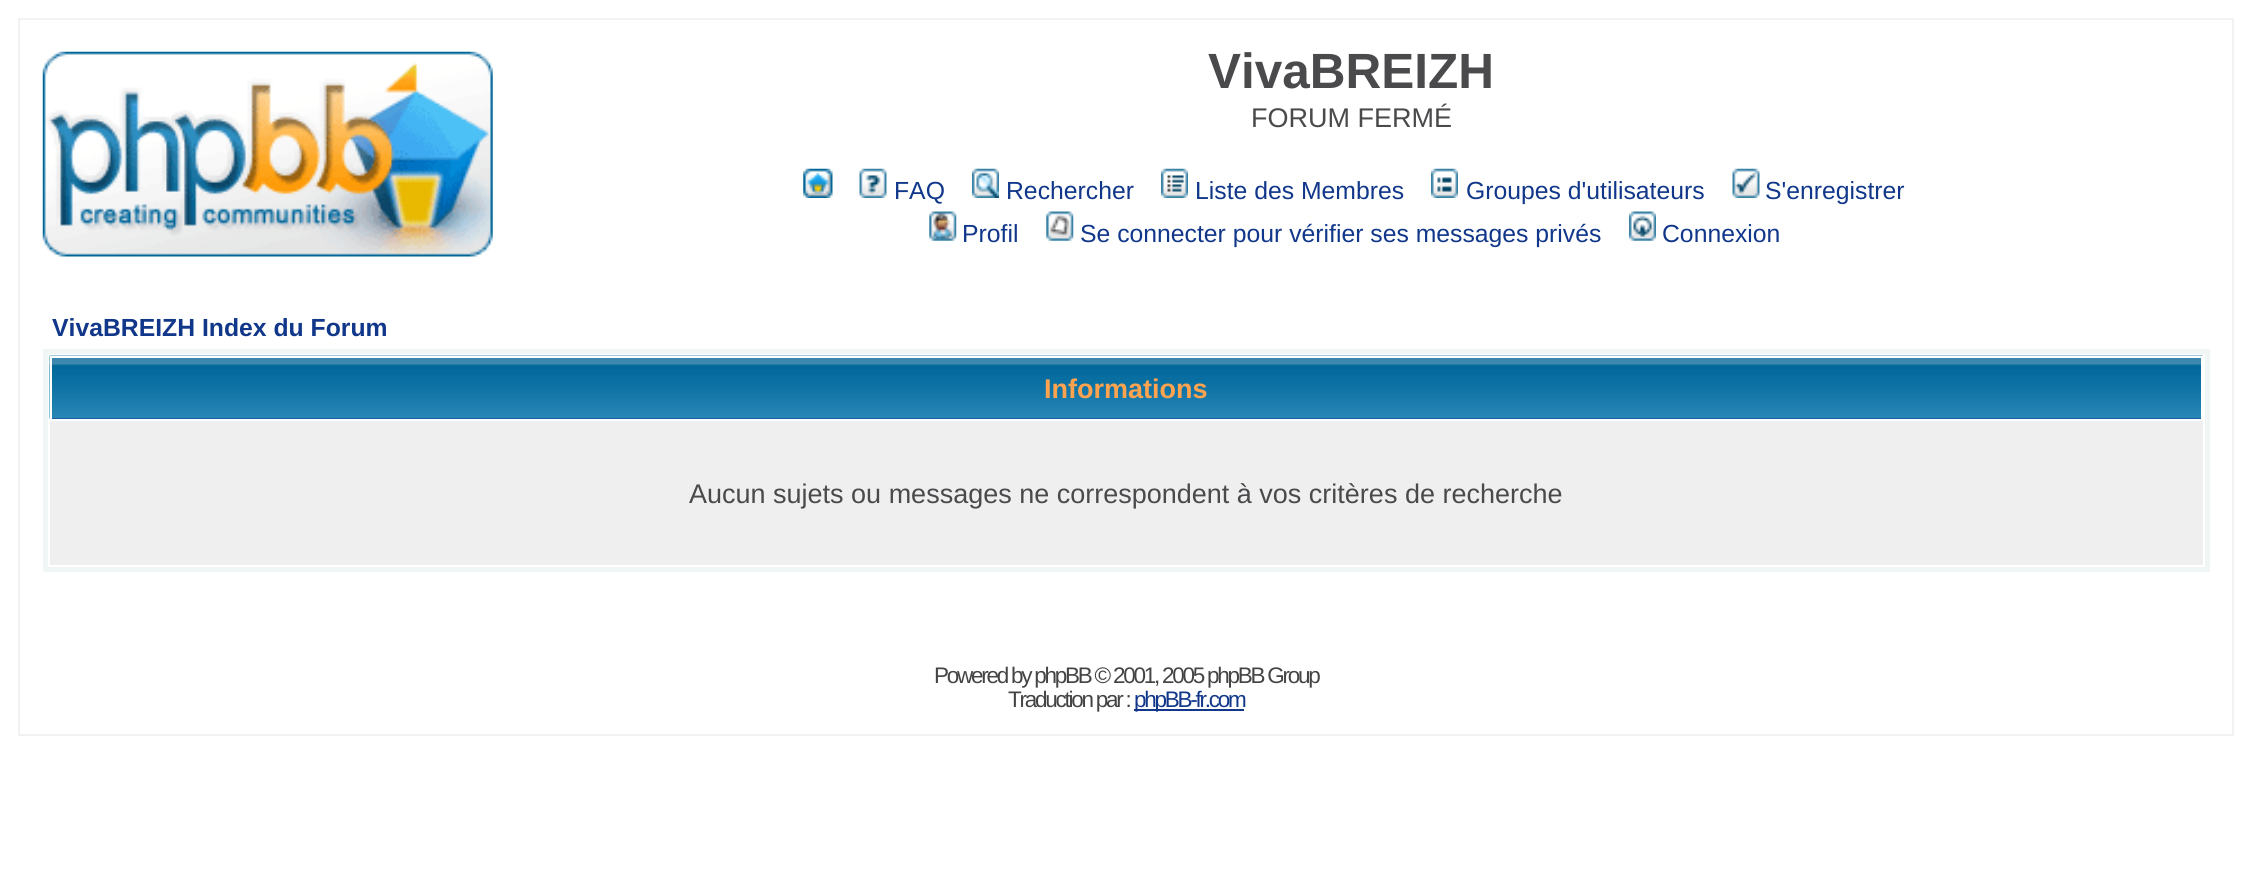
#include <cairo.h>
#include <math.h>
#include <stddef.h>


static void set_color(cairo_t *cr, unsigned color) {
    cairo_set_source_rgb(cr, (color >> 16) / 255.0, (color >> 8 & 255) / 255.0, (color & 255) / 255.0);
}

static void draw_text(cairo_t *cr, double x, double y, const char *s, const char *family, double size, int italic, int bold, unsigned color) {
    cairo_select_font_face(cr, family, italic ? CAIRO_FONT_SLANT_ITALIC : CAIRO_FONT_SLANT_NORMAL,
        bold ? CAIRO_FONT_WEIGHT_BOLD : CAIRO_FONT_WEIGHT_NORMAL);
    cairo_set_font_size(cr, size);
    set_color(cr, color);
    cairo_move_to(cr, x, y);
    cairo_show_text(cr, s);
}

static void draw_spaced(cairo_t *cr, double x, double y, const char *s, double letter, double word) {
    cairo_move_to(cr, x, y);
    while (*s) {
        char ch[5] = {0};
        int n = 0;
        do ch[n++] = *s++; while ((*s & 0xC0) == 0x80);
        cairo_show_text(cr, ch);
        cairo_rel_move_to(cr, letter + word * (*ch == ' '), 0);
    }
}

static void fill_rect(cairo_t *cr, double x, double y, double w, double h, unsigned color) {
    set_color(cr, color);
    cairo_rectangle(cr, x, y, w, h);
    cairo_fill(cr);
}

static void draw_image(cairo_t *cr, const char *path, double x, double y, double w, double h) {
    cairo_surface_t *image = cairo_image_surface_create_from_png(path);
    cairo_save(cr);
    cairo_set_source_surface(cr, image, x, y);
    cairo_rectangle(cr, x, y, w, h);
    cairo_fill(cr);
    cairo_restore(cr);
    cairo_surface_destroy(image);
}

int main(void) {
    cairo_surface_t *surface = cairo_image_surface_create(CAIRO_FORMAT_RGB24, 2251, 871);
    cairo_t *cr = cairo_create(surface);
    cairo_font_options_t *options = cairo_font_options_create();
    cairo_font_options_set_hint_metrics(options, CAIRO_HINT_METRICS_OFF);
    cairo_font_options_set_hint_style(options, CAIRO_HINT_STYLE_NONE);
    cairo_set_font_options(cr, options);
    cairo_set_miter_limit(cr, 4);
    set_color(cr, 0xFFFFFF);
    cairo_paint(cr);
    cairo_rectangle(cr, 19, 19, 2214, 716);
    set_color(cr, 0xF2F2F2);
    cairo_stroke(cr);
    draw_image(cr, "assets/img1.png", 42, 51, 451, 206);
    draw_text(cr, 1208, 88, "VivaBREIZH", "Liberation Sans", 49.5, 0, 1, 0x4A4A4D);
    draw_text(cr, 1251, 127, "FORUM FERMÉ", "Liberation Sans", 27, 0, 0, 0x4A4A4D);
    draw_image(cr, "assets/img2.png", 803, 168, 30, 30);
    draw_image(cr, "assets/img3.png", 859, 168, 28, 30);
    draw_text(cr, 894, 199, "FAQ", "Liberation Sans", 24.75, 0, 0, 0x11378A);
    draw_image(cr, "assets/img4.png", 972, 168, 27, 30);
    draw_text(cr, 1006, 199, "Rechercher", "Liberation Sans", 24.75, 0, 0, 0x11378A);
    draw_image(cr, "assets/img5.png", 1161, 168, 27, 30);
    draw_text(cr, 1195, 199, "Liste des Membres", "Liberation Sans", 24.75, 0, 0, 0x11378A);
    draw_image(cr, "assets/img6.png", 1431, 168, 27, 30);
    draw_text(cr, 1466, 199, "Groupes d'utilisateurs", "Liberation Sans", 24.75, 0, 0, 0x11378A);
    draw_image(cr, "assets/img7.png", 1732, 168, 28, 30);
    draw_text(cr, 1765, 199, "S'enregistrer", "Liberation Sans", 24.75, 0, 0, 0x11378A);
    draw_image(cr, "assets/img8.png", 929, 211, 28, 30);
    draw_text(cr, 962, 242, "Profil", "Liberation Sans", 24.75, 0, 0, 0x11378A);
    draw_image(cr, "assets/img9.png", 1046, 211, 28, 30);
    draw_text(cr, 1080, 242, "Se connecter pour vérifier ses messages privés", "Liberation Sans", 24.75, 0, 0, 0x11378A);
    draw_image(cr, "assets/img10.png", 1629, 211, 27, 30);
    draw_text(cr, 1662, 242, "Connexion", "Liberation Sans", 24.75, 0, 0, 0x11378A);
    draw_text(cr, 52, 336, "VivaBREIZH Index du Forum", "Liberation Sans", 24.75, 0, 1, 0x11378A);
    cairo_rectangle(cr, 45.5, 351.5, 2162, 218);
    set_color(cr, 0xF0F5F5);
    cairo_set_line_width(cr, 5);
    cairo_stroke(cr);
    fill_rect(cr, 52, 418, 2149, 1, 0x11378A);
    draw_image(cr, "assets/img11.png", 49, 355, 2154, 64);
    fill_rect(cr, 50, 356, 2153, 2, 0xFFFFFF);
    fill_rect(cr, 2201, 356, 2, 63, 0xFFFFFF);
    fill_rect(cr, 50, 356, 2, 63, 0xFFFFFF);
    draw_text(cr, 1044, 398, "Informations", "Liberation Sans", 27, 0, 1, 0xFFA34F);
    fill_rect(cr, 50, 421, 2153, 144, 0xEFEFEF);
    draw_text(cr, 689, 503, "Aucun sujets ou messages ne correspondent à vos critères de recherche", "Liberation Sans", 27, 0, 0, 0x4A4A4D);
    cairo_set_font_size(cr, 22.5);
    set_color(cr, 0x444444);
    draw_spaced(cr, 934, 683, "Powered by phpBB © 2001, 2005 phpBB Group", -2.25, 0);
    draw_spaced(cr, 1008, 707, "Traduction par :", -2.25, 0);
    fill_rect(cr, 1134, 709, 110, 2, 0x11378A);
    draw_spaced(cr, 1134, 707, "phpBB-fr.com", -2.25, 0);
    cairo_surface_write_to_png(surface, "output.png");
    cairo_font_options_destroy(options);
    cairo_destroy(cr);
    cairo_surface_destroy(surface);
    return 0;
}
